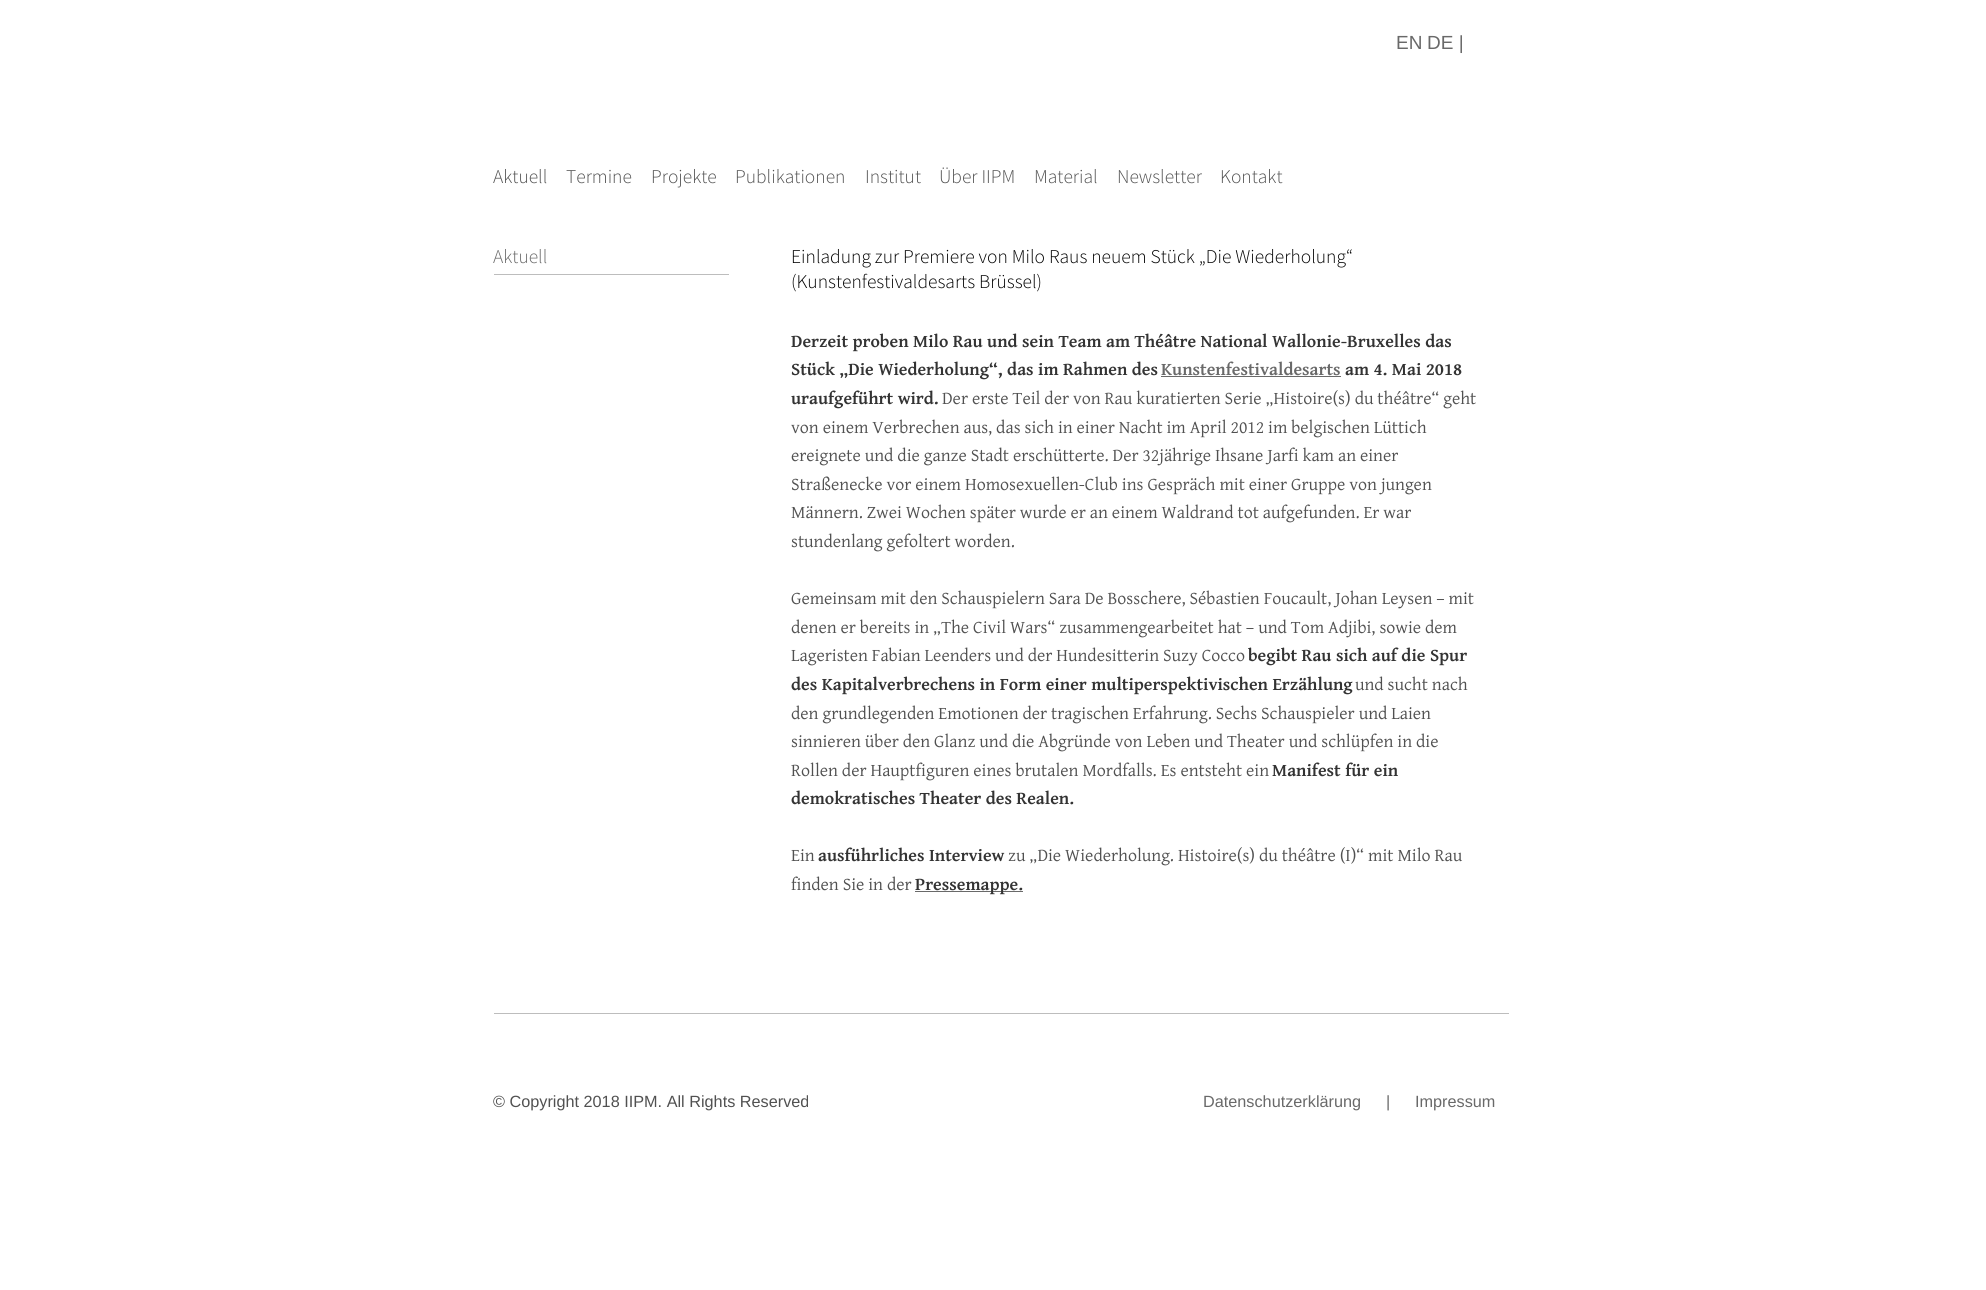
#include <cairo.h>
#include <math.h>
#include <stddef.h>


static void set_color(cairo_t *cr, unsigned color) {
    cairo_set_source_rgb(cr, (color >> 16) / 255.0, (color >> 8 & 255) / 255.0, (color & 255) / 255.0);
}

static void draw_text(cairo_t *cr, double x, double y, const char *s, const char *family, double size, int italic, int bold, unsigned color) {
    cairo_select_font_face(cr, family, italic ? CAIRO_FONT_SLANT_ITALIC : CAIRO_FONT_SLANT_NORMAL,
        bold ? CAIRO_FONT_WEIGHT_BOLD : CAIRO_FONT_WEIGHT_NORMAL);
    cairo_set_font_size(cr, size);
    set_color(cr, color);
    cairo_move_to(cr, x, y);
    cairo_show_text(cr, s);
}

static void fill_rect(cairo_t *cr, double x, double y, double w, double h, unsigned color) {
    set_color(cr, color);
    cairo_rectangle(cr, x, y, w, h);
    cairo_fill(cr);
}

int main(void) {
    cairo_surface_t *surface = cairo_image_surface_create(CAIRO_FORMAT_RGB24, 1986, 1290);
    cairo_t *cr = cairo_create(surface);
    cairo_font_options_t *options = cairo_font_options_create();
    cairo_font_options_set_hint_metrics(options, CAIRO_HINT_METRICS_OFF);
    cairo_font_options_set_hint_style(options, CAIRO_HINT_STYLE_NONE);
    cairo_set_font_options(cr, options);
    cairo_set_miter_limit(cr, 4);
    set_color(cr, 0xFFFFFF);
    cairo_paint(cr);
    draw_text(cr, 1396, 49, "EN", "Liberation Sans", 19, 0, 0, 0x696969);
    draw_text(cr, 1427, 49, "DE |", "Liberation Sans", 19, 0, 0, 0x696969);
    draw_text(cr, 493, 183, "Aktuell", "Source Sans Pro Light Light", 19.5, 0, 0, 0x515151);
    draw_text(cr, 566, 183, "Termine", "Source Sans Pro Light Light", 19.5, 0, 0, 0x515151);
    draw_text(cr, 651, 183, "Projekte", "Source Sans Pro Light Light", 19.5, 0, 0, 0x515151);
    draw_text(cr, 735, 183, "Publikationen", "Source Sans Pro Light Light", 19.5, 0, 0, 0x515151);
    draw_text(cr, 865, 183, "Institut", "Source Sans Pro Light Light", 19.5, 0, 0, 0x515151);
    draw_text(cr, 939, 183, "Über IIPM", "Source Sans Pro Light Light", 19.5, 0, 0, 0x515151);
    draw_text(cr, 1034, 183, "Material", "Source Sans Pro Light Light", 19.5, 0, 0, 0x515151);
    draw_text(cr, 1117, 183, "Newsletter", "Source Sans Pro Light Light", 19.5, 0, 0, 0x515151);
    draw_text(cr, 1220, 183, "Kontakt", "Source Sans Pro Light Light", 19.5, 0, 0, 0x515151);
    draw_text(cr, 493, 263, "Aktuell", "Source Sans Pro Light Light", 19.5, 0, 0, 0x696969);
    fill_rect(cr, 494, 274, 235, 1, 0xBDBDBD);
    draw_text(cr, 791, 263, "Einladung zur Premiere von Milo Raus neuem Stück „Die Wiederholung“", "Source Sans Pro Light Light", 19.5, 0, 0, 0x000000);
    draw_text(cr, 791, 288, "(Kunstenfestivaldesarts Brüssel)", "Source Sans Pro Light Light", 19.5, 0, 0, 0x000000);
    draw_text(cr, 791, 347, "Derzeit proben Milo Rau und sein Team am Théâtre National Wallonie-Bruxelles das", "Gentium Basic", 17.9, 0, 1, 0x333333);
    draw_text(cr, 791, 375, "Stück „Die Wiederholung“, das im Rahmen des", "Gentium Basic", 17.9, 0, 1, 0x333333);
    fill_rect(cr, 1161, 376, 180, 1, 0x696969);
    draw_text(cr, 1161, 375, "Kunstenfestivaldesarts", "Gentium Basic", 17.9, 0, 1, 0x696969);
    draw_text(cr, 1345, 375, "am 4. Mai 2018", "Gentium Basic", 17.9, 0, 1, 0x333333);
    draw_text(cr, 791, 404, "uraufgeführt wird.", "Gentium Basic", 17.9, 0, 1, 0x333333);
    draw_text(cr, 942, 404, "Der erste Teil der von Rau kuratierten Serie „Histoire(s) du théâtre“ geht", "Gentium Basic", 17.9, 0, 0, 0x515151);
    draw_text(cr, 791, 433, "von einem Verbrechen aus, das sich in einer Nacht im April 2012 im belgischen Lüttich", "Gentium Basic", 17.9, 0, 0, 0x515151);
    draw_text(cr, 791, 461, "ereignete und die ganze Stadt erschütterte. Der 32jährige Ihsane Jarfi kam an einer", "Gentium Basic", 17.9, 0, 0, 0x515151);
    draw_text(cr, 791, 490, "Straßenecke vor einem Homosexuellen-Club ins Gespräch mit einer Gruppe von jungen", "Gentium Basic", 17.9, 0, 0, 0x515151);
    draw_text(cr, 791, 518, "Männern. Zwei Wochen später wurde er an einem Waldrand tot aufgefunden. Er war", "Gentium Basic", 17.9, 0, 0, 0x515151);
    draw_text(cr, 791, 547, "stundenlang gefoltert worden.", "Gentium Basic", 17.9, 0, 0, 0x515151);
    draw_text(cr, 791, 604, "Gemeinsam mit den Schauspielern Sara De Bosschere, Sébastien Foucault, Johan Leysen – mit", "Gentium Basic", 17.9, 0, 0, 0x515151);
    draw_text(cr, 791, 633, "denen er bereits in „The Civil Wars“ zusammengearbeitet hat – und Tom Adjibi, sowie dem", "Gentium Basic", 17.9, 0, 0, 0x515151);
    draw_text(cr, 791, 661, "Lageristen Fabian Leenders und der Hundesitterin Suzy Cocco", "Gentium Basic", 17.9, 0, 0, 0x515151);
    draw_text(cr, 1248, 661, "begibt Rau sich auf die Spur", "Gentium Basic", 17.9, 0, 1, 0x333333);
    draw_text(cr, 791, 690, "des Kapitalverbrechens in Form einer multiperspektivischen Erzählung", "Gentium Basic", 17.9, 0, 1, 0x333333);
    draw_text(cr, 1355, 690, "und sucht nach", "Gentium Basic", 17.9, 0, 0, 0x515151);
    draw_text(cr, 791, 719, "den grundlegenden Emotionen der tragischen Erfahrung. Sechs Schauspieler und Laien", "Gentium Basic", 17.9, 0, 0, 0x515151);
    draw_text(cr, 791, 747, "sinnieren über den Glanz und die Abgründe von Leben und Theater und schlüpfen in die", "Gentium Basic", 17.9, 0, 0, 0x515151);
    draw_text(cr, 791, 776, "Rollen der Hauptfiguren eines brutalen Mordfalls. Es entsteht ein", "Gentium Basic", 17.9, 0, 0, 0x515151);
    draw_text(cr, 1272, 776, "Manifest für ein", "Gentium Basic", 17.9, 0, 1, 0x333333);
    draw_text(cr, 791, 804, "demokratisches Theater des Realen.", "Gentium Basic", 17.9, 0, 1, 0x333333);
    draw_text(cr, 791, 861, "Ein", "Gentium Basic", 17.9, 0, 0, 0x515151);
    draw_text(cr, 818, 861, "ausführliches Interview", "Gentium Basic", 17.9, 0, 1, 0x333333);
    draw_text(cr, 1008, 861, "zu „Die Wiederholung. Histoire(s) du théâtre (I)“ mit Milo Rau", "Gentium Basic", 17.9, 0, 0, 0x515151);
    draw_text(cr, 791, 890, "finden Sie in der", "Gentium Basic", 17.9, 0, 0, 0x515151);
    fill_rect(cr, 915, 891, 108, 1, 0x696969);
    draw_text(cr, 915, 890, "Pressemappe.", "Gentium Basic", 17.9, 0, 1, 0x333333);
    fill_rect(cr, 494, 1013, 1015, 1, 0xBDBDBD);
    draw_text(cr, 493, 1107, "© Copyright 2018 IIPM. All Rights Reserved", "Liberation Sans", 16.25, 0, 0, 0x515151);
    draw_text(cr, 1203, 1107, "Datenschutzerklärung", "Liberation Sans", 16.25, 0, 0, 0x696969);
    draw_text(cr, 1386, 1107, "|", "Liberation Sans", 16.25, 0, 0, 0x696969);
    draw_text(cr, 1415, 1107, "Impressum", "Liberation Sans", 16.25, 0, 0, 0x696969);
    cairo_surface_write_to_png(surface, "output.png");
    cairo_font_options_destroy(options);
    cairo_destroy(cr);
    cairo_surface_destroy(surface);
    return 0;
}
